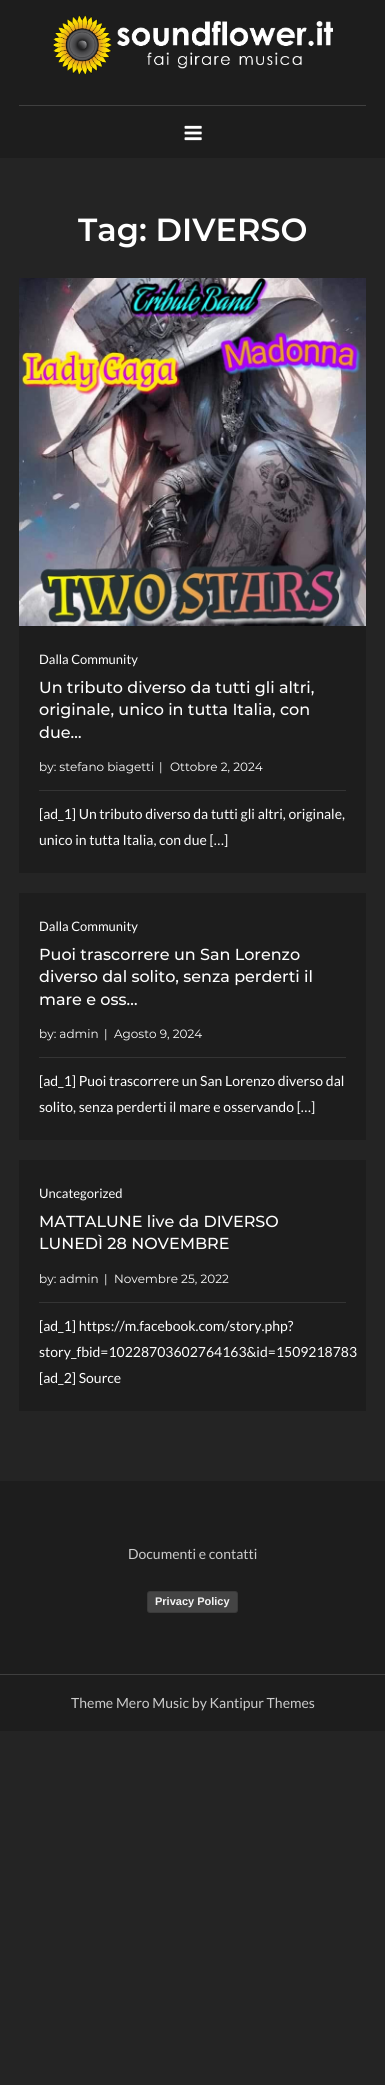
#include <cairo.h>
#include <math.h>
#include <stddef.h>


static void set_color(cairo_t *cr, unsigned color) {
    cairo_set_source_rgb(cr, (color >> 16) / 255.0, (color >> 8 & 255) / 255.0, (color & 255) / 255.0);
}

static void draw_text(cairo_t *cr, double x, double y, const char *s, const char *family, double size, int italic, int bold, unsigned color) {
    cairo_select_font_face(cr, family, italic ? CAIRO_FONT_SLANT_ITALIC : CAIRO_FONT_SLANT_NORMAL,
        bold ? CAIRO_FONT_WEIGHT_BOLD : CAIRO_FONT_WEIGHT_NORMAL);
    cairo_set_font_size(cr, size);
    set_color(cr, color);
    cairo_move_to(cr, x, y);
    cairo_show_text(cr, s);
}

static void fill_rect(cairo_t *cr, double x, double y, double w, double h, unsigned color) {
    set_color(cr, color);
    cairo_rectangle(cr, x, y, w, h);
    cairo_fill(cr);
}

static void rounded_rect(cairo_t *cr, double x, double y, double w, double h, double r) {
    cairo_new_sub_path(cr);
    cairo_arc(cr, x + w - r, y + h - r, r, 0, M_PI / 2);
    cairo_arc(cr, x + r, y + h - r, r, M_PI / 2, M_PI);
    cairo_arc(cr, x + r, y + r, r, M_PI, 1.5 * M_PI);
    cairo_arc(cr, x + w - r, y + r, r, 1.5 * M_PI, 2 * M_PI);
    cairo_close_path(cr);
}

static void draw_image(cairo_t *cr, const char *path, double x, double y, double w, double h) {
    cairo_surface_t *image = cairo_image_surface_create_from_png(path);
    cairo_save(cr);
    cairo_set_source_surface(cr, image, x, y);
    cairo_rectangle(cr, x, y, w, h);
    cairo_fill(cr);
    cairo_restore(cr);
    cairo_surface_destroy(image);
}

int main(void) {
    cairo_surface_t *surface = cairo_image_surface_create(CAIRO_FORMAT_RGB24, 385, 2085);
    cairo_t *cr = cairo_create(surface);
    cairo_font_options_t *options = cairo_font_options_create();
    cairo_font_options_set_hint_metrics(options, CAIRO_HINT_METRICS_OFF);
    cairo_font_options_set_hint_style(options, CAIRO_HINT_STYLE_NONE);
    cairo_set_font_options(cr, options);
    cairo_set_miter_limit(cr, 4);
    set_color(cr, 0x242424);
    cairo_paint(cr);
    fill_rect(cr, 0, 0, 385, 158, 0x1D1D1D);
    fill_rect(cr, 19, 105, 347, 1, 0x3F3F3F);
    draw_image(cr, "assets/img1.png", 52, 15, 281, 60);
    draw_image(cr, "assets/img2.png", 184, 125, 18, 16);
    draw_text(cr, 78, 241, "Tag: DIVERSO", "Montserrat SemiBold", 32, 0, 0, 0xFFFFFF);
    fill_rect(cr, 19, 626, 347, 247, 0x1D1D1D);
    draw_image(cr, "assets/img3.png", 19, 278, 347, 348);
    draw_text(cr, 39, 664, "Dalla Community", "Lato", 13, 0, 0, 0xFFFFFF);
    draw_text(cr, 39, 693, "Un tributo diverso da tutti gli altri,", "Montserrat Medium", 16, 0, 0, 0xFFFFFF);
    draw_text(cr, 39, 715, "originale, unico in tutta Italia, con", "Montserrat Medium", 16, 0, 0, 0xFFFFFF);
    draw_text(cr, 39, 738, "due…", "Montserrat Medium", 16, 0, 0, 0xFFFFFF);
    draw_text(cr, 39, 771, "by: stefano biagetti", "Montserrat", 12, 0, 0, 0xFFFFFF);
    draw_text(cr, 159, 771, "|", "Montserrat", 12, 0, 0, 0xFFFFFF);
    draw_text(cr, 170, 771, "Ottobre 2, 2024", "Montserrat", 12, 0, 0, 0xFFFFFF);
    fill_rect(cr, 39, 790, 307, 1, 0x343434);
    draw_text(cr, 39, 819, "[ad_1] Un tributo diverso da tutti gli altri, originale,", "Lato", 14, 0, 0, 0xFFFFFF);
    draw_text(cr, 39, 845, "unico in tutta Italia, con due […]", "Lato", 14, 0, 0, 0xFFFFFF);
    fill_rect(cr, 19, 893, 347, 247, 0x1D1D1D);
    draw_text(cr, 39, 931, "Dalla Community", "Lato", 13, 0, 0, 0xFFFFFF);
    draw_text(cr, 39, 960, "Puoi trascorrere un San Lorenzo", "Montserrat Medium", 16, 0, 0, 0xFFFFFF);
    draw_text(cr, 39, 982, "diverso dal solito, senza perderti il", "Montserrat Medium", 16, 0, 0, 0xFFFFFF);
    draw_text(cr, 39, 1005, "mare e oss…", "Montserrat Medium", 16, 0, 0, 0xFFFFFF);
    draw_text(cr, 39, 1038, "by: admin", "Montserrat", 12, 0, 0, 0xFFFFFF);
    draw_text(cr, 104, 1038, "|", "Montserrat", 12, 0, 0, 0xFFFFFF);
    draw_text(cr, 114, 1038, "Agosto 9, 2024", "Montserrat", 12, 0, 0, 0xFFFFFF);
    fill_rect(cr, 39, 1057, 307, 1, 0x343434);
    draw_text(cr, 39, 1086, "[ad_1] Puoi trascorrere un San Lorenzo diverso dal", "Lato", 14, 0, 0, 0xFFFFFF);
    draw_text(cr, 39, 1112, "solito, senza perderti il mare e osservando […]", "Lato", 14, 0, 0, 0xFFFFFF);
    fill_rect(cr, 19, 1160, 347, 251, 0x1D1D1D);
    draw_text(cr, 39, 1198, "Uncategorized", "Lato", 13, 0, 0, 0xFFFFFF);
    draw_text(cr, 39, 1227, "MATTALUNE live da DIVERSO", "Montserrat Medium", 16, 0, 0, 0xFFFFFF);
    draw_text(cr, 39, 1249, "LUNEDÌ 28 NOVEMBRE", "Montserrat Medium", 16, 0, 0, 0xFFFFFF);
    draw_text(cr, 39, 1283, "by: admin", "Montserrat", 12, 0, 0, 0xFFFFFF);
    draw_text(cr, 104, 1283, "|", "Montserrat", 12, 0, 0, 0xFFFFFF);
    draw_text(cr, 114, 1283, "Novembre 25, 2022", "Montserrat", 12, 0, 0, 0xFFFFFF);
    fill_rect(cr, 39, 1302, 307, 1, 0x343434);
    draw_text(cr, 39, 1331, "[ad_1] https://m.facebook.com/story.php?", "Lato", 14, 0, 0, 0xFFFFFF);
    draw_text(cr, 39, 1357, "story_fbid=10228703602764163&id=1509218783", "Lato", 14, 0, 0, 0xFFFFFF);
    draw_text(cr, 39, 1383, "[ad_2] Source", "Lato", 14, 0, 0, 0xFFFFFF);
    fill_rect(cr, 0, 1481, 385, 250, 0x1D1D1D);
    draw_text(cr, 128, 1559, "Documenti e contatti", "Lato", 14, 0, 0, 0xCCCCCC);
    set_color(cr, 0x444444);
    rounded_rect(cr, 147, 1591, 91, 22, 3);
    cairo_fill(cr);
    rounded_rect(cr, 147.5, 1591.5, 90, 21, 2.5);
    cairo_set_source_rgba(cr, 0, 0, 0, 0.15);
    cairo_set_line_width(cr, 1);
    cairo_stroke(cr);
    draw_text(cr, 155, 1605, "Privacy Policy", "Liberation Sans", 11, 0, 1, 0xF4F4F4);
    fill_rect(cr, 0, 1674, 385, 1, 0x3F3F3F);
    draw_text(cr, 71, 1708, "Theme Mero Music by Kantipur Themes", "Lato", 14, 0, 0, 0xCCCCCC);
    cairo_surface_write_to_png(surface, "output.png");
    cairo_font_options_destroy(options);
    cairo_destroy(cr);
    cairo_surface_destroy(surface);
    return 0;
}
